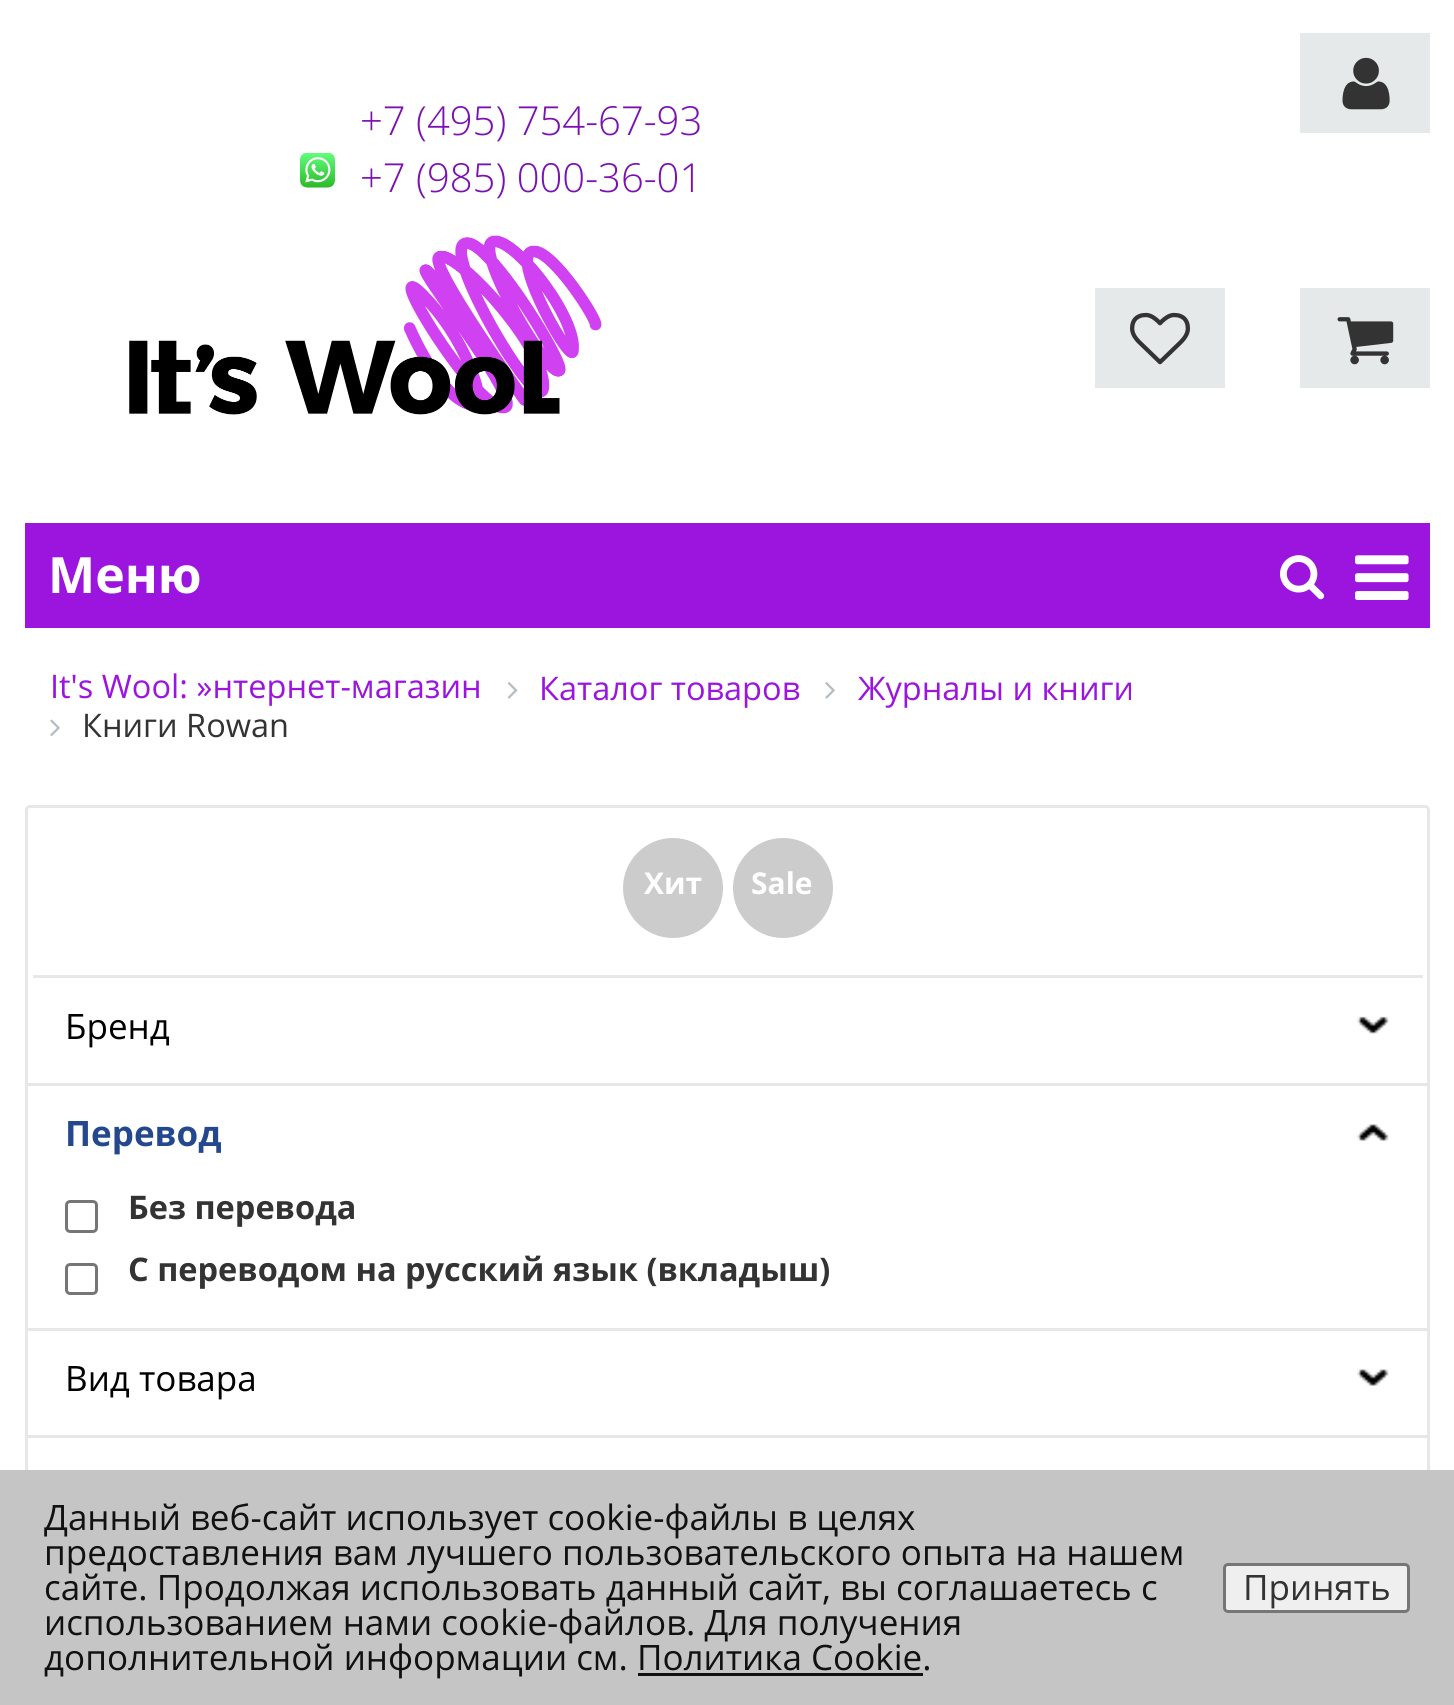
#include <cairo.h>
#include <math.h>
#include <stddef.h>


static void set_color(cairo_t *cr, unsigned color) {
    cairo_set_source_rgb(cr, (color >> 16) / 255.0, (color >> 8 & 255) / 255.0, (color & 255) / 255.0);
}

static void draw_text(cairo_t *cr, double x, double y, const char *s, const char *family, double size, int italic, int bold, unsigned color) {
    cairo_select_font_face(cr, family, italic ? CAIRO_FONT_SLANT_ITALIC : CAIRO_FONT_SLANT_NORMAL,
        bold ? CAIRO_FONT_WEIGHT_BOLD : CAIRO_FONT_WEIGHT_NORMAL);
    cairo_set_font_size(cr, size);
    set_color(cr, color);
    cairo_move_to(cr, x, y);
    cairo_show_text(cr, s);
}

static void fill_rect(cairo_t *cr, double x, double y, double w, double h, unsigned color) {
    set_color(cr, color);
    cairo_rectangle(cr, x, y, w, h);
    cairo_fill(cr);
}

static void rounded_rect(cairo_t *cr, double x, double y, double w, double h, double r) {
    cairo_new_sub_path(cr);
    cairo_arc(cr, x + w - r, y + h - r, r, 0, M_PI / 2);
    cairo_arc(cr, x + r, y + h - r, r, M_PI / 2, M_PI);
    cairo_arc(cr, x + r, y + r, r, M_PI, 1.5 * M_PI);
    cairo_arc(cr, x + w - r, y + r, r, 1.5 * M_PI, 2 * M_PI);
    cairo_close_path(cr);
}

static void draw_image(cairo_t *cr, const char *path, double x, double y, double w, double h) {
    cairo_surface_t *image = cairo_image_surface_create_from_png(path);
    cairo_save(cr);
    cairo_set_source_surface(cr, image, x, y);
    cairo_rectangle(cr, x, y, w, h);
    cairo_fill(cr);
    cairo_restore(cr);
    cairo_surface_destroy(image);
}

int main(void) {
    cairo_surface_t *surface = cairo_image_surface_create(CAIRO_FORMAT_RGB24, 1454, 1705);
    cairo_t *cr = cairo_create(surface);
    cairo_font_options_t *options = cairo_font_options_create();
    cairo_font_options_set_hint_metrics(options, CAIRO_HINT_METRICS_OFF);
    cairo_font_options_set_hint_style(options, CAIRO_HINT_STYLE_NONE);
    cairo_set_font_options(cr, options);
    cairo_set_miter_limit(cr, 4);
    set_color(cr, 0xFFFFFF);
    cairo_paint(cr);
    fill_rect(cr, 1300, 33, 130, 100, 0xE5E9EA);
    draw_image(cr, "assets/img1.png", 1342, 57, 48, 53);
    draw_text(cr, 360, 135, "+7 (495) 754-67-93", "Open Sans Light", 40, 0, 0, 0x7C11B2);
    draw_image(cr, "assets/img2.png", 300, 153, 35, 35);
    draw_text(cr, 360, 192, "+7 (985) 000-36-01", "Open Sans Light", 40, 0, 0, 0x7C11B2);
    draw_image(cr, "assets/img3.png", 129, 235, 473, 180);
    fill_rect(cr, 1095, 288, 130, 100, 0xE5E9EA);
    draw_image(cr, "assets/img4.png", 1130, 312, 60, 53);
    fill_rect(cr, 1300, 288, 130, 100, 0xE5E9EA);
    draw_image(cr, "assets/img5.png", 1337, 317, 57, 48);
    fill_rect(cr, 25, 523, 1405, 105, 0x9B15DE);
    draw_text(cr, 48, 593, "Меню", "Open Sans", 50, 0, 1, 0xFFFFFF);
    draw_image(cr, "assets/img6.png", 1280, 555, 45, 45);
    draw_image(cr, "assets/img7.png", 1355, 555, 54, 45);
    draw_text(cr, 50, 698, "It's Wool: »нтернет-магазин", "Open Sans", 32.5, 0, 0, 0x9B15DE);
    draw_image(cr, "assets/img8.png", 507, 682, 11, 17);
    draw_text(cr, 539, 700, "Каталог товаров", "Open Sans", 32.5, 0, 0, 0x9B15DE);
    draw_image(cr, "assets/img9.png", 825, 682, 10, 17);
    draw_text(cr, 858, 700, "Журналы и книги", "Open Sans", 32.5, 0, 0, 0x9B15DE);
    draw_image(cr, "assets/img10.png", 50, 719, 10, 18);
    draw_text(cr, 82, 737, "Книги Rowan", "Open Sans", 32.5, 0, 0, 0x333333);
    rounded_rect(cr, 26.5, 806.5, 1402, 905, 3.5);
    set_color(cr, 0xE7E7E7);
    cairo_set_line_width(cr, 3);
    cairo_stroke(cr);
    set_color(cr, 0xCCCCCC);
    cairo_arc(cr, 673, 888, 48.5, 0, 2 * M_PI);
    cairo_fill_preserve(cr);
    cairo_stroke(cr);
    draw_text(cr, 644, 894, "Хит", "Open Sans", 30, 0, 1, 0xFFFFFF);
    set_color(cr, 0xCCCCCC);
    cairo_new_path(cr);
    cairo_arc(cr, 783, 888, 48.5, 0, 2 * M_PI);
    cairo_fill_preserve(cr);
    cairo_stroke(cr);
    draw_text(cr, 751, 894, "Sale", "Open Sans", 30, 0, 1, 0xFFFFFF);
    fill_rect(cr, 33, 975, 1390, 3, 0xE7E7E7);
    draw_image(cr, "assets/img11.png", 1357, 1016, 32, 18);
    draw_text(cr, 65, 1039, "Бренд", "Open Sans", 35, 0, 0, 0x000000);
    fill_rect(cr, 25, 1083, 1405, 3, 0xE7E7E7);
    draw_image(cr, "assets/img12.png", 1357, 1124, 32, 17);
    draw_text(cr, 65, 1146, "Перевод", "Open Sans", 35, 0, 1, 0x24488E);
    rounded_rect(cr, 66.5, 1201.5, 30, 30, 3.5);
    set_color(cr, 0x767676);
    cairo_stroke(cr);
    draw_text(cr, 128, 1219, "Без перевода", "Open Sans", 32.5, 0, 1, 0x333333);
    rounded_rect(cr, 66.5, 1264.5, 30, 29, 3.5);
    set_color(cr, 0x767676);
    cairo_stroke(cr);
    draw_text(cr, 128, 1281, "С переводом на русский язык (вкладыш)", "Open Sans", 32.5, 0, 1, 0x333333);
    fill_rect(cr, 25, 1328, 1405, 3, 0xE7E7E7);
    draw_image(cr, "assets/img13.png", 1357, 1369, 32, 17);
    draw_text(cr, 65, 1391, "Вид товара", "Open Sans", 35, 0, 0, 0x000000);
    fill_rect(cr, 25, 1435, 1405, 3, 0xE7E7E7);
    fill_rect(cr, 0, 1470, 1454, 235, 0xC5C5C5);
    draw_text(cr, 44, 1530, "Данный веб-сайт использует cookie-файлы в целях", "Open Sans", 35, 0, 0, 0x111111);
    draw_text(cr, 44, 1565, "предоставления вам лучшего пользовательского опыта на нашем", "Open Sans", 35, 0, 0, 0x111111);
    draw_text(cr, 44, 1600, "сайте. Продолжая использовать данный сайт, вы соглашаетесь с", "Open Sans", 35, 0, 0, 0x111111);
    draw_text(cr, 44, 1635, "использованием нами cookie-файлов. Для получения", "Open Sans", 35, 0, 0, 0x111111);
    draw_text(cr, 44, 1670, "дополнительной информации см. Политика Cookie.", "Open Sans", 35, 0, 0, 0x111111);
    fill_rect(cr, 638, 1673, 285, 3, 0x111111);
    set_color(cr, 0xEFEFEF);
    rounded_rect(cr, 1224.5, 1564.5, 184, 47, 3.5);
    cairo_fill_preserve(cr);
    set_color(cr, 0x767676);
    cairo_stroke(cr);
    draw_text(cr, 1243, 1600, "Принять", "Open Sans", 35, 0, 0, 0x333333);
    cairo_surface_write_to_png(surface, "output.png");
    cairo_font_options_destroy(options);
    cairo_destroy(cr);
    cairo_surface_destroy(surface);
    return 0;
}
